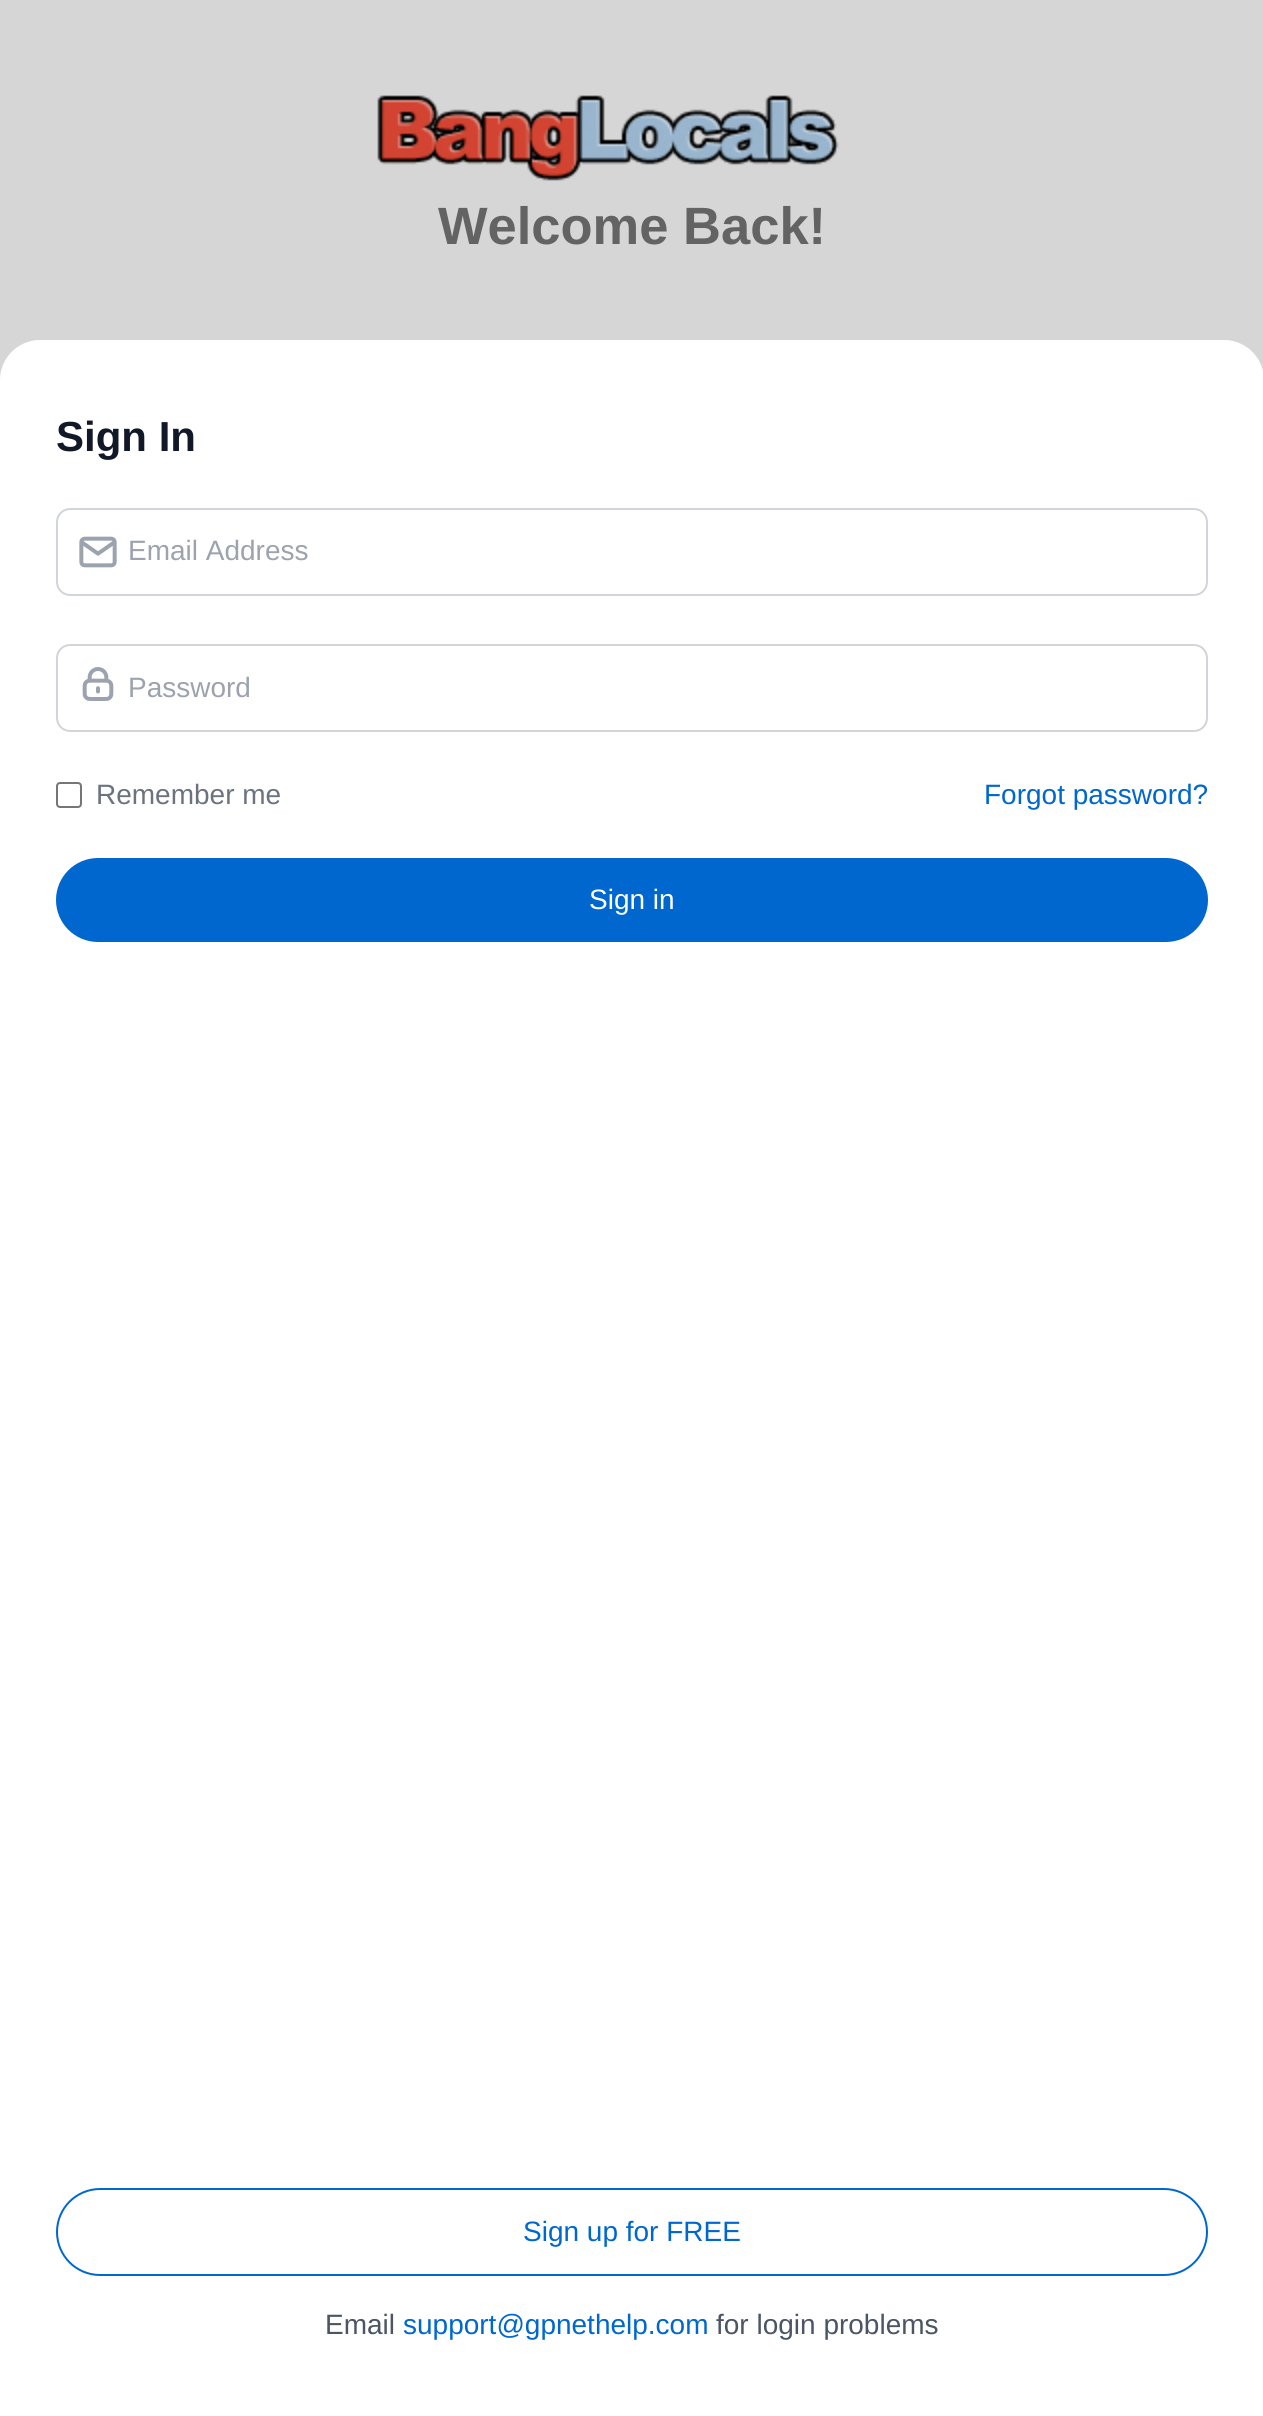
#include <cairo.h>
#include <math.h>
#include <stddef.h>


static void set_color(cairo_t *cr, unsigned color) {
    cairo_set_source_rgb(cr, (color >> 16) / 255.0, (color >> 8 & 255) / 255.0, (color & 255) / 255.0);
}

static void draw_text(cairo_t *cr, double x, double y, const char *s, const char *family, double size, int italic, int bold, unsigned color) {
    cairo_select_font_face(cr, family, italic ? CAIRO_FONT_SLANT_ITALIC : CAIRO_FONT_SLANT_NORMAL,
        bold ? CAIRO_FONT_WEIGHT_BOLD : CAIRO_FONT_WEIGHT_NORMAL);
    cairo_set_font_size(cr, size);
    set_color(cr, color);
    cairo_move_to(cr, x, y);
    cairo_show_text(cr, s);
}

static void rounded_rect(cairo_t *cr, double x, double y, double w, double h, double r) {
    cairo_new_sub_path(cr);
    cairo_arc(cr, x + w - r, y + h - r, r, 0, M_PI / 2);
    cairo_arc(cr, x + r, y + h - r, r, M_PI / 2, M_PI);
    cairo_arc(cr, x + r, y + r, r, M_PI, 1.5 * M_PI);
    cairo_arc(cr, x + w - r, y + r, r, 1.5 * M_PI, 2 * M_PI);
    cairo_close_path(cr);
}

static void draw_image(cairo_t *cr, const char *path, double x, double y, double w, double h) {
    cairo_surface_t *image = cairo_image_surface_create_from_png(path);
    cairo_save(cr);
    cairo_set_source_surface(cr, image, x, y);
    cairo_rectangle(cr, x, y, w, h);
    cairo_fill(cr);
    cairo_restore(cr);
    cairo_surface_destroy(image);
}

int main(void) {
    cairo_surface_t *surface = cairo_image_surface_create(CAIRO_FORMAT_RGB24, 1263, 2416);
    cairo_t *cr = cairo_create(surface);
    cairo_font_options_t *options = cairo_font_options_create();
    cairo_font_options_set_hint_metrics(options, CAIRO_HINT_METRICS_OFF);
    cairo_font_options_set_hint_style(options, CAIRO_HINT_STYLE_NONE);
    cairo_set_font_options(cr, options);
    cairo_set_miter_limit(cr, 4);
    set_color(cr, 0xD6D6D6);
    cairo_paint(cr);
    draw_image(cr, "assets/img1.png", 377, 95, 462, 86);
    draw_text(cr, 438, 244, "Welcome Back!", "Liberation Sans", 52.5, 0, 1, 0x636363);
    set_color(cr, 0xFFFFFF);
    cairo_new_path(cr);
    cairo_move_to(cr, 40, 340);
    cairo_line_to(cr, 1224, 340);
    cairo_curve_to(cr, 1246, 340, 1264, 358, 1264, 380);
    cairo_line_to(cr, 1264, 2416);
    cairo_line_to(cr, 0, 2416);
    cairo_line_to(cr, 0, 380);
    cairo_curve_to(cr, 0, 358, 18, 340, 40, 340);
    cairo_close_path(cr);
    cairo_fill(cr);
    draw_text(cr, 56, 451, "Sign In", "Liberation Sans", 42, 0, 1, 0x111827);
    rounded_rect(cr, 57, 509, 1150, 86, 13);
    set_color(cr, 0xD1D5DB);
    cairo_stroke(cr);
    draw_image(cr, "assets/img2.png", 79, 536, 38, 32);
    draw_text(cr, 128, 560, "Email Address", "Liberation Sans", 28, 0, 0, 0x9CA3AF);
    rounded_rect(cr, 57, 645, 1150, 86, 13);
    set_color(cr, 0xD1D5DB);
    cairo_stroke(cr);
    draw_image(cr, "assets/img3.png", 82, 667, 32, 34);
    draw_text(cr, 128, 697, "Password", "Liberation Sans", 28, 0, 0, 0x9CA3AF);
    rounded_rect(cr, 57, 783, 24, 24, 3);
    set_color(cr, 0x767676);
    cairo_stroke(cr);
    draw_text(cr, 96, 804, "Remember me", "Liberation Sans", 28, 0, 0, 0x6B7280);
    draw_text(cr, 984, 804, "Forgot password?", "Liberation Sans", 28, 0, 0, 0x0067CE);
    rounded_rect(cr, 56, 858, 1152, 84, 42);
    cairo_fill(cr);
    draw_text(cr, 589, 909, "Sign in", "Liberation Sans", 28, 0, 0, 0xFFFFFF);
    rounded_rect(cr, 57, 2189, 1150, 86, 43);
    set_color(cr, 0x0067CE);
    cairo_stroke(cr);
    draw_text(cr, 523, 2241, "Sign up for FREE", "Liberation Sans", 28, 0, 0, 0x0067CE);
    draw_text(cr, 325, 2334, "Email", "Liberation Sans", 28, 0, 0, 0x4B5563);
    draw_text(cr, 403, 2334, "support@gpnethelp.com", "Liberation Sans", 28, 0, 0, 0x0067CE);
    draw_text(cr, 716, 2334, "for login problems", "Liberation Sans", 28, 0, 0, 0x4B5563);
    cairo_surface_write_to_png(surface, "output.png");
    cairo_font_options_destroy(options);
    cairo_destroy(cr);
    cairo_surface_destroy(surface);
    return 0;
}
